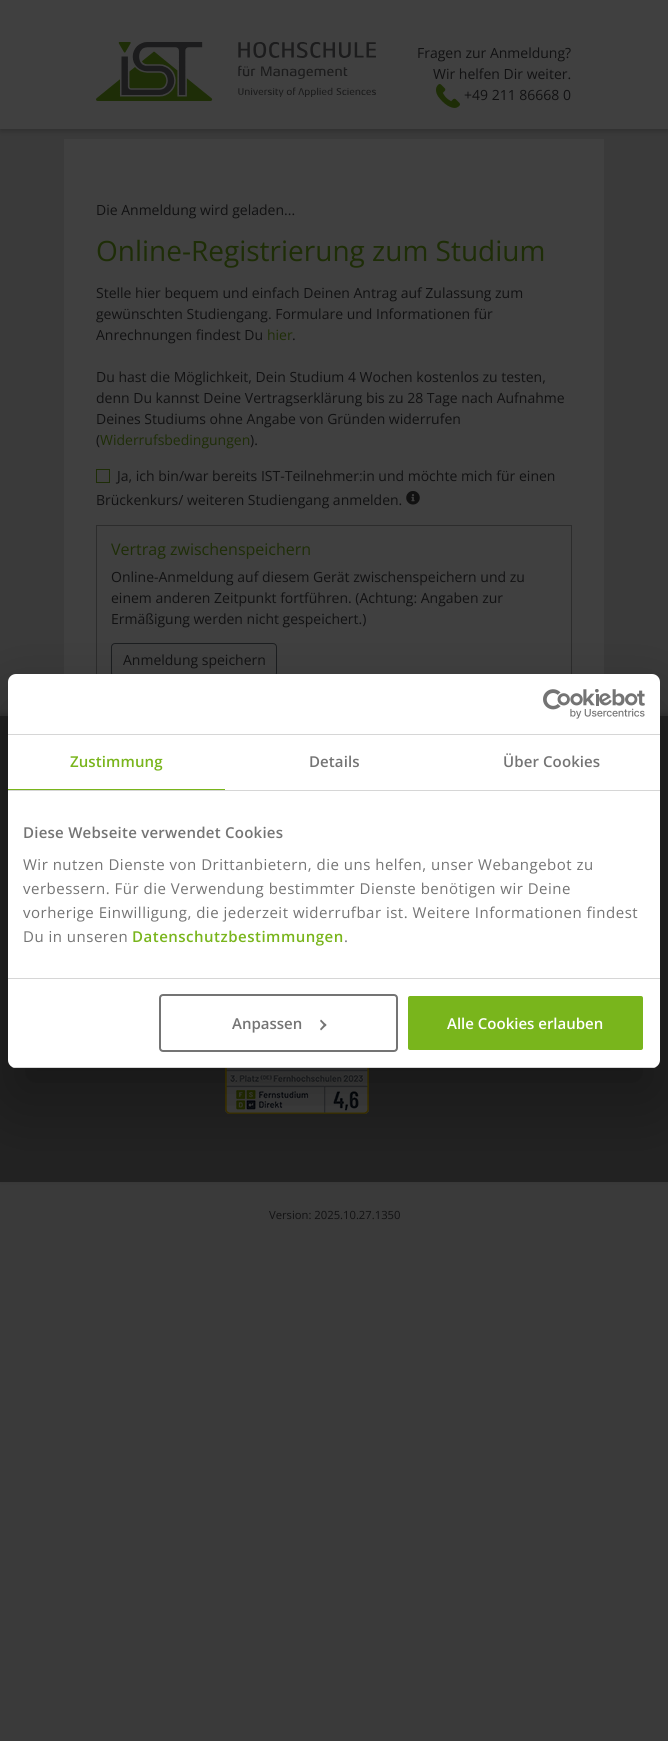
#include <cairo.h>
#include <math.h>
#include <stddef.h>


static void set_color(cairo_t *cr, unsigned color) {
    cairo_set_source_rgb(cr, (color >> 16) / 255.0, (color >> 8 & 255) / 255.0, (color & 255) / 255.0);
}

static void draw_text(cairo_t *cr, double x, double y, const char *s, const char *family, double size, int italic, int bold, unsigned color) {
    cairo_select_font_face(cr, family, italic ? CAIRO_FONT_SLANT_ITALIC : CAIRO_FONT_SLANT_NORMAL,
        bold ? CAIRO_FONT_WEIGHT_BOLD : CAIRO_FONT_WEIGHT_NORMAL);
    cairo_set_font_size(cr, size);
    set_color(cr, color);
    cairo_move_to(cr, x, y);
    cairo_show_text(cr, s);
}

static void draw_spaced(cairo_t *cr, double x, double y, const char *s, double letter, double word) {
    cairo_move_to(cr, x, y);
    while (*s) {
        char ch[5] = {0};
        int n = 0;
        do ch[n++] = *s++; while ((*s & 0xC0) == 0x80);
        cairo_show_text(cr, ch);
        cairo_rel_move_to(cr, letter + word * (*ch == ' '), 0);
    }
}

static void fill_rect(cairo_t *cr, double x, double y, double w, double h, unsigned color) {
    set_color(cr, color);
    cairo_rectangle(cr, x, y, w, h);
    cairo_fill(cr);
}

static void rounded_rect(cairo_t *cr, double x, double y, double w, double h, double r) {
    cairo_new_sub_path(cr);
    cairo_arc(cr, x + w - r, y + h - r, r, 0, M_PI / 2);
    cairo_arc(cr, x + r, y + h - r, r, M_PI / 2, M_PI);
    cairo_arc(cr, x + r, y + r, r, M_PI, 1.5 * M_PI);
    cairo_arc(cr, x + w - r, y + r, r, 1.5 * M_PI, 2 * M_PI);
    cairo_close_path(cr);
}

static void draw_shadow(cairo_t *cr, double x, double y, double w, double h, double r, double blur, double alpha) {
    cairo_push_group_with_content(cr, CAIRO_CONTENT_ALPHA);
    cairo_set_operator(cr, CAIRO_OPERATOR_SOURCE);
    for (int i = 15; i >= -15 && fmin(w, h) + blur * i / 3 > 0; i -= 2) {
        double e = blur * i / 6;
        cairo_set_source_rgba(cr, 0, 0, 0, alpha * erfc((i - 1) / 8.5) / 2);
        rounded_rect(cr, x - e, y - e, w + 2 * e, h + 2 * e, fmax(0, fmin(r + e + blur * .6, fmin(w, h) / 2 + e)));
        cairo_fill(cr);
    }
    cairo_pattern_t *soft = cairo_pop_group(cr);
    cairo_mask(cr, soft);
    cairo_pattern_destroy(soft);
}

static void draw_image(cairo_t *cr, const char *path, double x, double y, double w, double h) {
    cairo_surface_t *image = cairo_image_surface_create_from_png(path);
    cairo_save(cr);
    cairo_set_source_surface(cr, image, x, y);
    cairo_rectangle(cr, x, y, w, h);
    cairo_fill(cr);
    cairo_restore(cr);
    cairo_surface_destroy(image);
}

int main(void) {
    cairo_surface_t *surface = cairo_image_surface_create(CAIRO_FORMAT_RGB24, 668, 1741);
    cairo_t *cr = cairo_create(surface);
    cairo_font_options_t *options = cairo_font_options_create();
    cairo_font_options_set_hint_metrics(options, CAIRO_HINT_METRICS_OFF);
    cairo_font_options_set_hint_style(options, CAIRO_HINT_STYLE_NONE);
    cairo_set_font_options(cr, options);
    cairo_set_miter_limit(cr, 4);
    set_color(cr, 0x3A3A3A);
    cairo_paint(cr);
    set_color(cr, 0x000000);
    draw_shadow(cr, 0, 2, 668, 129, 0, 3, 0.2);
    fill_rect(cr, 0, 0, 668, 129, 0x404040);
    draw_image(cr, "assets/img1.png", 96, 42, 280, 59);
    draw_text(cr, 417, 58, "Fragen zur Anmeldung?", "Open Sans", 14, 0, 0, 0x111112);
    draw_text(cr, 433, 79, "Wir helfen Dir weiter.", "Open Sans", 14, 0, 0, 0x111112);
    draw_image(cr, "assets/img2.png", 436, 84, 24, 24);
    draw_text(cr, 464, 100, "+49 211 86668 0", "Open Sans", 14, 0, 0, 0x111112);
    fill_rect(cr, 64, 139, 540, 535, 0x404040);
    draw_text(cr, 96, 215, "Die Anmeldung wird geladen...", "Open Sans", 14, 0, 0, 0x111112);
    draw_text(cr, 96, 261, "Online-Registrierung zum Studium", "Open Sans", 28, 0, 0, 0x1E2D07);
    draw_text(cr, 96, 298, "Stelle hier bequem und einfach Deinen Antrag auf Zulassung zum", "Open Sans", 14, 0, 0, 0x111112);
    draw_text(cr, 96, 319, "gewünschten Studiengang. Formulare und Informationen für", "Open Sans", 14, 0, 0, 0x111112);
    draw_text(cr, 96, 340, "Anrechnungen findest Du", "Open Sans", 14, 0, 0, 0x111112);
    draw_text(cr, 267, 340, "hier", "Open Sans", 14, 0, 0, 0x1E2D07);
    draw_text(cr, 292, 340, ".", "Open Sans", 14, 0, 0, 0x111112);
    draw_text(cr, 96, 382, "Du hast die Möglichkeit, Dein Studium 4 Wochen kostenlos zu testen,", "Open Sans", 14, 0, 0, 0x111112);
    draw_text(cr, 96, 403, "denn Du kannst Deine Vertragserklärung bis zu 28 Tage nach Aufnahme", "Open Sans", 14, 0, 0, 0x111112);
    draw_text(cr, 96, 424, "Deines Studiums ohne Angabe von Gründen widerrufen", "Open Sans", 14, 0, 0, 0x111112);
    draw_text(cr, 96, 445, "(", "Open Sans", 14, 0, 0, 0x111112);
    draw_text(cr, 100, 445, "Widerrufsbedingungen", "Open Sans", 14, 0, 0, 0x1E2D07);
    draw_text(cr, 250, 445, ").", "Open Sans", 14, 0, 0, 0x111112);
    cairo_rectangle(cr, 96.5, 469.5, 13, 13);
    set_color(cr, 0x1E2D07);
    cairo_set_line_width(cr, 1);
    cairo_stroke(cr);
    draw_text(cr, 117, 481, "Ja, ich bin/war bereits IST-Teilnehmer:in und möchte mich für einen", "Open Sans", 14, 0, 0, 0x111112);
    draw_text(cr, 96, 505, "Brückenkurs/ weiteren Studiengang anmelden.", "Open Sans", 14, 0, 0, 0x111112);
    draw_image(cr, "assets/img3.png", 406, 491, 14, 14);
    cairo_rectangle(cr, 96.5, 525.5, 475, 166);
    set_color(cr, 0x2C2C2C);
    cairo_stroke(cr);
    draw_text(cr, 111, 555, "Vertrag zwischenspeichern", "Open Sans", 16, 0, 0, 0x1E2D07);
    draw_text(cr, 111, 582, "Online-Anmeldung auf diesem Gerät zwischenspeichern und zu", "Open Sans", 14, 0, 0, 0x111112);
    draw_text(cr, 111, 603, "einem anderen Zeitpunkt fortführen. (Achtung: Angaben zur", "Open Sans", 14, 0, 0, 0x111112);
    draw_text(cr, 111, 624, "Ermäßigung werden nicht gespeichert.)", "Open Sans", 14, 0, 0, 0x111112);
    rounded_rect(cr, 111.5, 643.5, 165, 33, 3.5);
    set_color(cr, 0x1B1D1F);
    cairo_stroke(cr);
    draw_text(cr, 123, 665, "Anmeldung speichern", "Open Sans", 14, 0, 0, 0x111112);
    set_color(cr, 0x000000);
    draw_shadow(cr, 0, 714, 668, 466, 0, 3, 0.2);
    fill_rect(cr, 0, 716, 668, 466, 0x222222);
    draw_image(cr, "assets/img4.png", 225, 1068, 144, 46);
    set_color(cr, 0x000000);
    draw_shadow(cr, 8, 706, 652, 394, 8, 34, 0.3);
    set_color(cr, 0xFFFFFF);
    rounded_rect(cr, 8, 674, 652, 394, 8);
    cairo_fill(cr);
    fill_rect(cr, 8, 734, 652, 1, 0xD6D6D6);
    draw_image(cr, "assets/img5.png", 543, 689, 102, 30);
    fill_rect(cr, 8, 790, 652, 1, 0xD6D6D6);
    fill_rect(cr, 8, 789, 217, 1, 0x79B51C);
    cairo_select_font_face(cr, "Open Sans SemiBold", CAIRO_FONT_SLANT_NORMAL, CAIRO_FONT_WEIGHT_NORMAL);
    cairo_set_font_size(cr, 15);
    draw_spaced(cr, 70, 767, "Zustimmung", 0.1, 0);
    set_color(cr, 0x747474);
    draw_spaced(cr, 309, 767, "Details", 0.1, 0);
    draw_spaced(cr, 503, 767, "Über Cookies", 0.1, 0);
    fill_rect(cr, 8, 978, 652, 1, 0xD6D6D6);
    set_color(cr, 0x747474);
    draw_spaced(cr, 23, 838, "Diese Webseite verwendet Cookies", 0.25, 0);
    cairo_select_font_face(cr, "Open Sans", CAIRO_FONT_SLANT_NORMAL, CAIRO_FONT_WEIGHT_NORMAL);
    draw_spaced(cr, 23, 870, "Wir nutzen Dienste von Drittanbietern, die uns helfen, unser Webangebot zu", 0.5, 0);
    draw_spaced(cr, 23, 894, "verbessern. Für die Verwendung bestimmter Dienste benötigen wir Deine", 0.5, 0);
    draw_spaced(cr, 23, 918, "vorherige Einwilligung, die jederzeit widerrufbar ist. Weitere Informationen findest", 0.5, 0);
    draw_spaced(cr, 23, 942, "Du in unseren", 0.5, 0);
    cairo_select_font_face(cr, "Open Sans SemiBold", CAIRO_FONT_SLANT_NORMAL, CAIRO_FONT_WEIGHT_NORMAL);
    set_color(cr, 0x79B51C);
    draw_spaced(cr, 132, 942, "Datenschutzbestimmungen", 0.5, 0);
    cairo_select_font_face(cr, "Open Sans", CAIRO_FONT_SLANT_NORMAL, CAIRO_FONT_WEIGHT_NORMAL);
    set_color(cr, 0x747474);
    draw_spaced(cr, 344, 942, ".", 0.5, 0);
    cairo_save(cr);
    rounded_rect(cr, 8, 674, 652, 394, 8);
    cairo_clip(cr);
    fill_rect(cr, 8, 1067, 652, 1, 0xD6D6D6);
    cairo_restore(cr);
    rounded_rect(cr, 160, 995, 237, 56, 3);
    cairo_set_line_width(cr, 2);
    cairo_stroke(cr);
    draw_text(cr, 232, 1029, "Anpassen", "Open Sans SemiBold", 15, 0, 0, 0x747474);
    cairo_new_path(cr);
    cairo_move_to(cr, 321, 1019.5);
    cairo_line_to(cr, 326.5, 1025);
    cairo_line_to(cr, 325, 1026.5);
    cairo_line_to(cr, 320, 1021);
    cairo_close_path(cr);
    cairo_fill(cr);
    cairo_new_path(cr);
    cairo_move_to(cr, 325, 1023.5);
    cairo_line_to(cr, 326.5, 1025);
    cairo_line_to(cr, 321, 1030.5);
    cairo_line_to(cr, 320, 1029);
    cairo_close_path(cr);
    cairo_fill(cr);
    set_color(cr, 0x79B51C);
    rounded_rect(cr, 407, 995, 237, 56, 3);
    cairo_fill_preserve(cr);
    set_color(cr, 0xFFFFFF);
    cairo_stroke(cr);
    draw_text(cr, 447, 1029, "Alle Cookies erlauben", "Open Sans SemiBold", 15, 0, 0, 0xFFFFFF);
    draw_text(cr, 269, 1219, "Version: 2025.10.27.1350", "Open Sans", 11.25, 0, 0, 0x111112);
    cairo_surface_write_to_png(surface, "output.png");
    cairo_font_options_destroy(options);
    cairo_destroy(cr);
    cairo_surface_destroy(surface);
    return 0;
}
